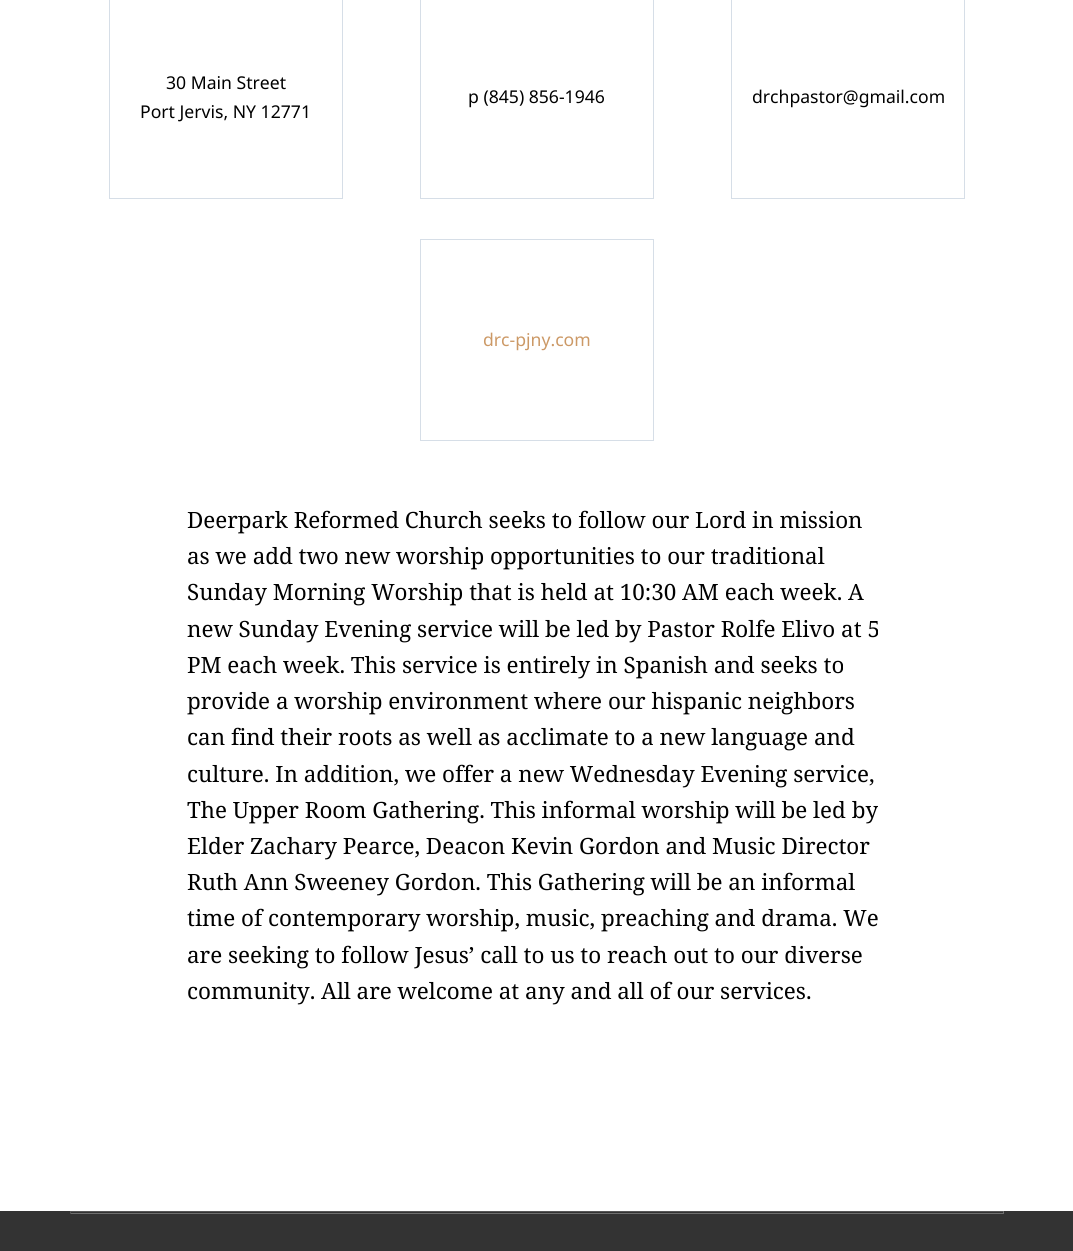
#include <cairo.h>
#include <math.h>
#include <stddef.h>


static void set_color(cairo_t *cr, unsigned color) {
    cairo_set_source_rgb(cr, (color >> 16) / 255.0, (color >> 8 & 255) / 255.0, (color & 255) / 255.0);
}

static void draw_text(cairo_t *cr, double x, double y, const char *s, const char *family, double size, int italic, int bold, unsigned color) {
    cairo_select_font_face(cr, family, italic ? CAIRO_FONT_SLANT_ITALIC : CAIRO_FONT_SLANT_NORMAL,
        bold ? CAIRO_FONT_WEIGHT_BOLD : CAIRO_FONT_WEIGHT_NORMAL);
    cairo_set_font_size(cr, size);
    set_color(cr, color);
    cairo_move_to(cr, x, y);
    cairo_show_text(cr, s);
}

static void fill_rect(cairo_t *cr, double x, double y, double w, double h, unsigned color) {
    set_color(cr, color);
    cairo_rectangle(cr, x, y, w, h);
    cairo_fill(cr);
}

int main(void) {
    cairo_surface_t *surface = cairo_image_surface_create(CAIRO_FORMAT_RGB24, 1073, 1251);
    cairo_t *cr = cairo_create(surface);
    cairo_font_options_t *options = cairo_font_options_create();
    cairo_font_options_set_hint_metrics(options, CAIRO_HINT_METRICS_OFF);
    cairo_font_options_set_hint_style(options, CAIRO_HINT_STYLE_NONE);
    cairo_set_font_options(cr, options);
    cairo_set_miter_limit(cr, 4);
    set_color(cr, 0xFFFFFF);
    cairo_paint(cr);
    cairo_rectangle(cr, 109.5, -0.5, 233, 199);
    set_color(cr, 0xD6DEE7);
    cairo_set_line_width(cr, 1);
    cairo_stroke(cr);
    draw_text(cr, 166, 89, "30 Main Street", "Noto Sans", 17.6, 0, 0, 0x000000);
    draw_text(cr, 140, 118, "Port Jervis, NY 12771", "Noto Sans", 17.6, 0, 0, 0x000000);
    cairo_rectangle(cr, 420.5, -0.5, 233, 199);
    set_color(cr, 0xD6DEE7);
    cairo_stroke(cr);
    draw_text(cr, 468, 103, "p (845) 856-1946", "Noto Sans", 17.6, 0, 0, 0x000000);
    cairo_rectangle(cr, 731.5, -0.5, 233, 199);
    set_color(cr, 0xD6DEE7);
    cairo_stroke(cr);
    draw_text(cr, 752, 103, "drchpastor@gmail.com", "Noto Sans", 17.6, 0, 0, 0x000000);
    cairo_rectangle(cr, 420.5, 239.5, 233, 201);
    set_color(cr, 0xD6DEE7);
    cairo_stroke(cr);
    draw_text(cr, 483, 346, "drc-pjny.com", "Noto Sans", 17.6, 0, 0, 0xCC9966);
    draw_text(cr, 187, 528, "Deerpark Reformed Church seeks to follow our Lord in mission", "Noto Serif", 22.4, 0, 0, 0x000000);
    draw_text(cr, 187, 564, "as we add two new worship opportunities to our traditional", "Noto Serif", 22.4, 0, 0, 0x000000);
    draw_text(cr, 187, 600, "Sunday Morning Worship that is held at 10:30 AM each week. A", "Noto Serif", 22.4, 0, 0, 0x000000);
    draw_text(cr, 187, 637, "new Sunday Evening service will be led by Pastor Rolfe Elivo at 5", "Noto Serif", 22.4, 0, 0, 0x000000);
    draw_text(cr, 187, 673, "PM each week. This service is entirely in Spanish and seeks to", "Noto Serif", 22.4, 0, 0, 0x000000);
    draw_text(cr, 187, 709, "provide a worship environment where our hispanic neighbors", "Noto Serif", 22.4, 0, 0, 0x000000);
    draw_text(cr, 187, 745, "can find their roots as well as acclimate to a new language and", "Noto Serif", 22.4, 0, 0, 0x000000);
    draw_text(cr, 187, 782, "culture. In addition, we offer a new Wednesday Evening service,", "Noto Serif", 22.4, 0, 0, 0x000000);
    draw_text(cr, 187, 818, "The Upper Room Gathering. This informal worship will be led by", "Noto Serif", 22.4, 0, 0, 0x000000);
    draw_text(cr, 187, 854, "Elder Zachary Pearce, Deacon Kevin Gordon and Music Director", "Noto Serif", 22.4, 0, 0, 0x000000);
    draw_text(cr, 187, 890, "Ruth Ann Sweeney Gordon. This Gathering will be an informal", "Noto Serif", 22.4, 0, 0, 0x000000);
    draw_text(cr, 187, 926, "time of contemporary worship, music, preaching and drama. We", "Noto Serif", 22.4, 0, 0, 0x000000);
    draw_text(cr, 187, 963, "are seeking to follow Jesus’ call to us to reach out to our diverse", "Noto Serif", 22.4, 0, 0, 0x000000);
    draw_text(cr, 187, 999, "community. All are welcome at any and all of our services.", "Noto Serif", 22.4, 0, 0, 0x000000);
    fill_rect(cr, 0, 1211, 1073, 40, 0x333333);
    fill_rect(cr, 70, 1211, 934, 1, 0x565656);
    fill_rect(cr, 1003, 1211, 1, 3, 0x6F6F6F);
    fill_rect(cr, 70, 1213, 934, 1, 0x6F6F6F);
    fill_rect(cr, 70, 1211, 1, 3, 0x565656);
    cairo_surface_write_to_png(surface, "output.png");
    cairo_font_options_destroy(options);
    cairo_destroy(cr);
    cairo_surface_destroy(surface);
    return 0;
}
